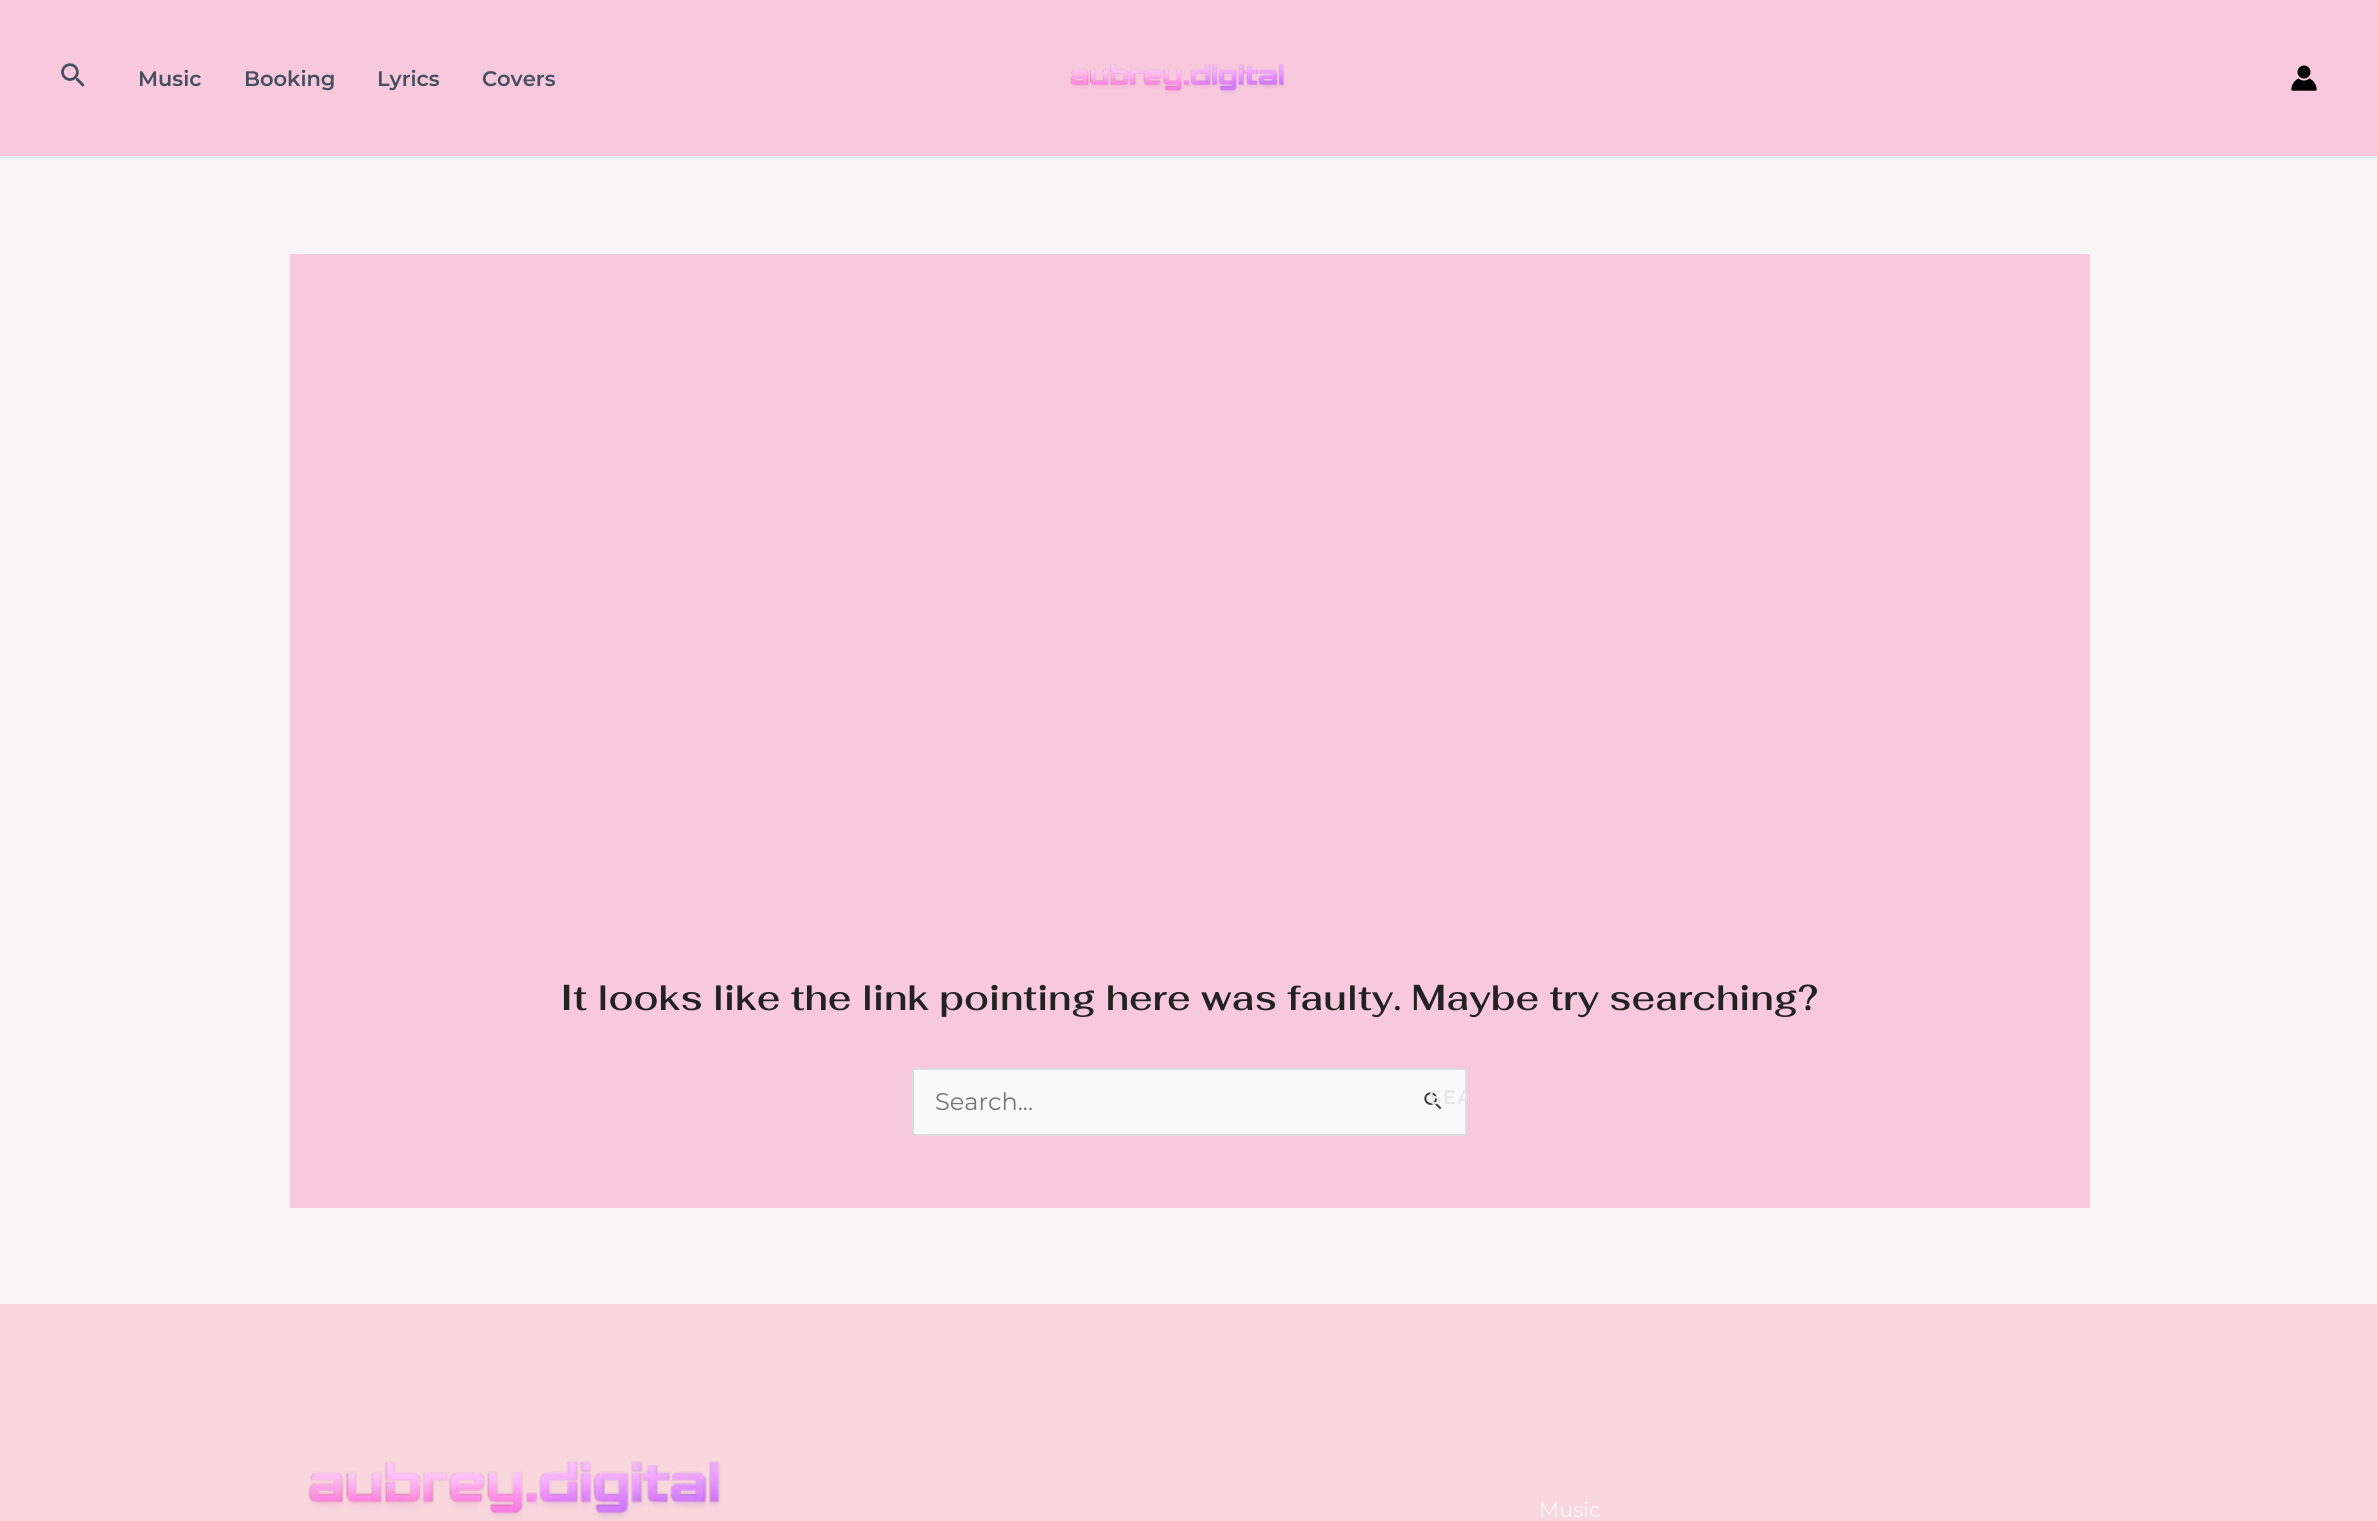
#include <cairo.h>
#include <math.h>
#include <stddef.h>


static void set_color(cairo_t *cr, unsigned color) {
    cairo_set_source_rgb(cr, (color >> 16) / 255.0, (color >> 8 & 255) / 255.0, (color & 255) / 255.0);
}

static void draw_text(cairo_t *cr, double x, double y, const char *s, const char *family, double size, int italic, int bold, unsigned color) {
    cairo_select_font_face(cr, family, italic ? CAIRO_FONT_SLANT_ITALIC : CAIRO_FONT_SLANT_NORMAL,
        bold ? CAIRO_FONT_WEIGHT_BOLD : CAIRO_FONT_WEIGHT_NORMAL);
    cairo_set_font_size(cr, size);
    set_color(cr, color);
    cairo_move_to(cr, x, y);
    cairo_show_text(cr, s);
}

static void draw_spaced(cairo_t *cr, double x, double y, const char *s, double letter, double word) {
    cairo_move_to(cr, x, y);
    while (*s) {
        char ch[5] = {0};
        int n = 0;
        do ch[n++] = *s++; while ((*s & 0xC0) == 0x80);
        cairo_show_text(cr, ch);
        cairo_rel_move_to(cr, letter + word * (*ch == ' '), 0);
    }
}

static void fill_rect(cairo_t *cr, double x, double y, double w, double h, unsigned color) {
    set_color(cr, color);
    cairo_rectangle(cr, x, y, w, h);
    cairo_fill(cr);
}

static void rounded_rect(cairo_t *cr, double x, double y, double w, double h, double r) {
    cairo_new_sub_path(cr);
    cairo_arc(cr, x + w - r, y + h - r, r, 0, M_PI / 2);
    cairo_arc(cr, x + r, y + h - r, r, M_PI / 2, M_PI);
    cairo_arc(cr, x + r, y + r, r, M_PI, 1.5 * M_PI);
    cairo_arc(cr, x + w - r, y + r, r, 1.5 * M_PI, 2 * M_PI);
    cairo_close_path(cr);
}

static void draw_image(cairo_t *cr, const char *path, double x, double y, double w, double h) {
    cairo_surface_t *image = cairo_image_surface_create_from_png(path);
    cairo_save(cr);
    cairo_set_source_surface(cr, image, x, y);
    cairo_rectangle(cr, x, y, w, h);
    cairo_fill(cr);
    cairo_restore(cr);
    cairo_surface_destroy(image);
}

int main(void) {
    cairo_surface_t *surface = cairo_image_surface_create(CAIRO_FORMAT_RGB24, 2377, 1521);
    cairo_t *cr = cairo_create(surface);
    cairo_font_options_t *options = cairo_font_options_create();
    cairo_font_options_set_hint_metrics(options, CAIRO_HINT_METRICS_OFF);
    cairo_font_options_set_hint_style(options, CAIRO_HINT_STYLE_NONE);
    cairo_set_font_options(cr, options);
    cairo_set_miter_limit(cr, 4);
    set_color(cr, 0xF7F5F6);
    cairo_paint(cr);
    fill_rect(cr, 0, 0, 2377, 156, 0xF8C8DC);
    fill_rect(cr, 0, 156, 2377, 2, 0xEAEAEA);
    draw_image(cr, "assets/img1.png", 61, 63, 23, 24);
    draw_text(cr, 138, 86, "Music", "Montserrat SemiBold", 21, 0, 0, 0x454F5E);
    draw_text(cr, 244, 86, "Booking", "Montserrat SemiBold", 21, 0, 0, 0x454F5E);
    draw_text(cr, 377, 86, "Lyrics", "Montserrat SemiBold", 21, 0, 0, 0x454F5E);
    draw_text(cr, 482, 86, "Covers", "Montserrat SemiBold", 21, 0, 0, 0x454F5E);
    draw_image(cr, "assets/img2.png", 1070, 64, 215, 30);
    draw_image(cr, "assets/img3.png", 2291, 65, 26, 26);
    fill_rect(cr, 290, 254, 1800, 954, 0xF8C8DC);
    draw_text(cr, 560, 1010, "It looks like the link pointing here was faulty. Maybe try searching?", "Fahkwang SemiBold", 36, 0, 0, 0x222222);
    set_color(cr, 0xFAFAFA);
    rounded_rect(cr, 913, 1069, 553, 66, 2);
    cairo_fill_preserve(cr);
    set_color(cr, 0xDDDDDD);
    cairo_stroke(cr);
    draw_text(cr, 935, 1110, "Search...", "Montserrat", 24, 0, 0, 0x757575);
    draw_image(cr, "assets/img4.png", 1424, 1092, 18, 18);
    cairo_save(cr);
    rounded_rect(cr, 1400, 1068, 67, 59, 3);
    cairo_clip(cr);
    cairo_select_font_face(cr, "Montserrat SemiBold", CAIRO_FONT_SLANT_NORMAL, CAIRO_FONT_WEIGHT_NORMAL);
    cairo_set_font_size(cr, 19.5);
    set_color(cr, 0xE7E7E7);
    draw_spaced(cr, 1429, 1104, "SEA", 1.5, 0);
    cairo_restore(cr);
    fill_rect(cr, 0, 1304, 2377, 217, 0xF8D8DC);
    draw_image(cr, "assets/img5.png", 308, 1461, 413, 59);
    draw_text(cr, 1539, 1517, "Music", "Montserrat", 21, 0, 0, 0xF7F5F6);
    cairo_surface_write_to_png(surface, "output.png");
    cairo_font_options_destroy(options);
    cairo_destroy(cr);
    cairo_surface_destroy(surface);
    return 0;
}
